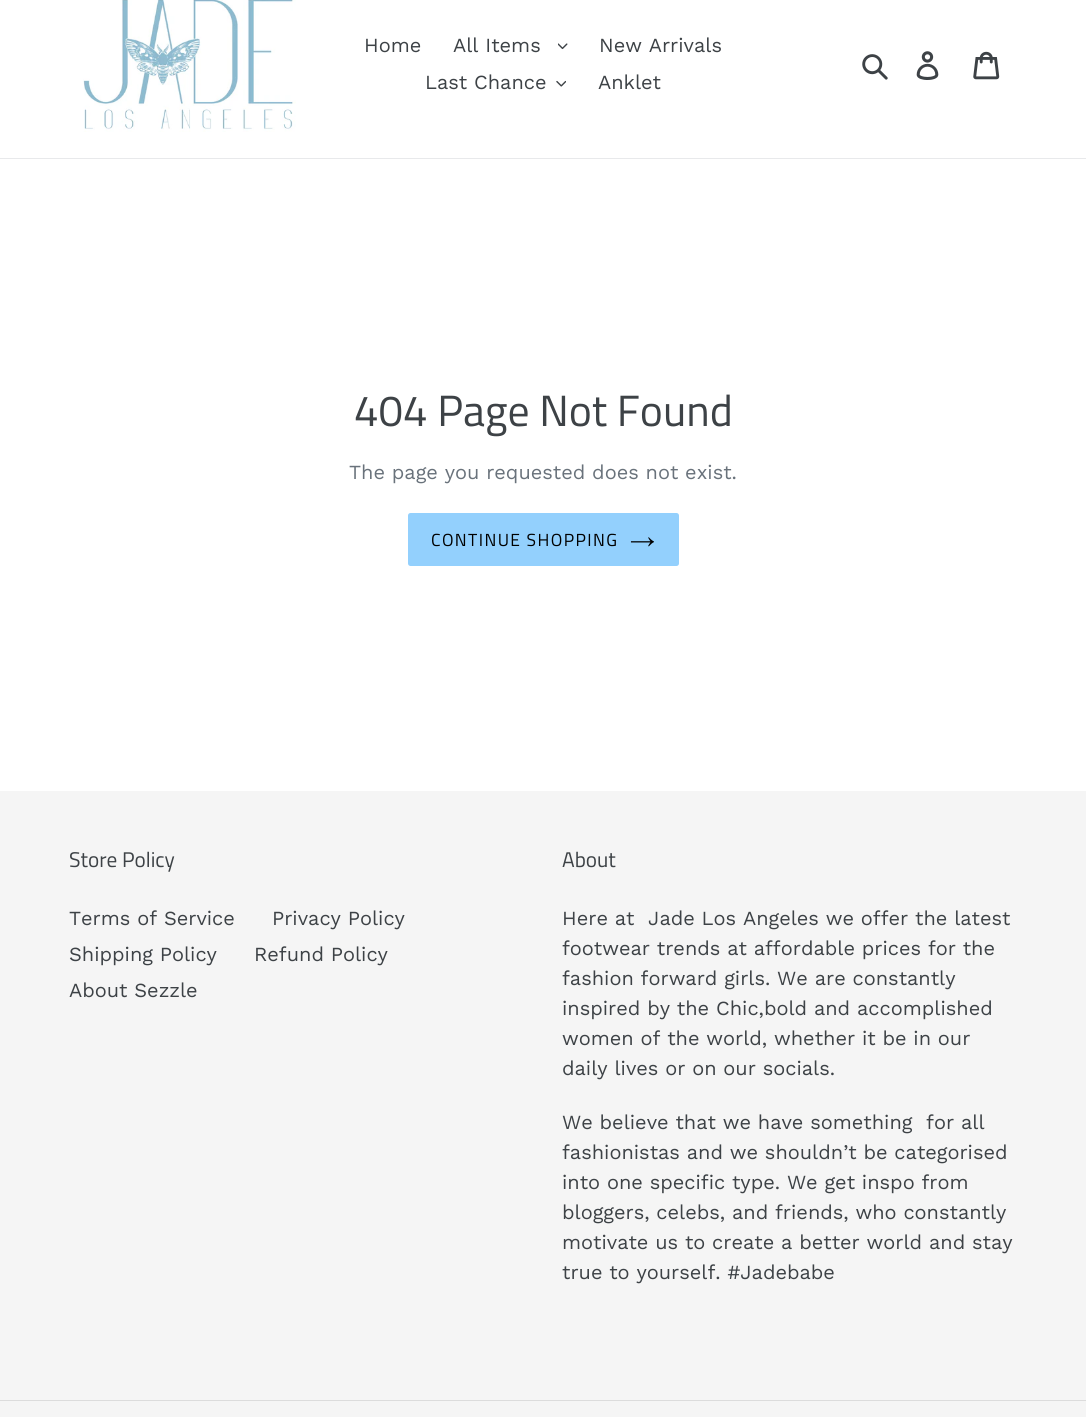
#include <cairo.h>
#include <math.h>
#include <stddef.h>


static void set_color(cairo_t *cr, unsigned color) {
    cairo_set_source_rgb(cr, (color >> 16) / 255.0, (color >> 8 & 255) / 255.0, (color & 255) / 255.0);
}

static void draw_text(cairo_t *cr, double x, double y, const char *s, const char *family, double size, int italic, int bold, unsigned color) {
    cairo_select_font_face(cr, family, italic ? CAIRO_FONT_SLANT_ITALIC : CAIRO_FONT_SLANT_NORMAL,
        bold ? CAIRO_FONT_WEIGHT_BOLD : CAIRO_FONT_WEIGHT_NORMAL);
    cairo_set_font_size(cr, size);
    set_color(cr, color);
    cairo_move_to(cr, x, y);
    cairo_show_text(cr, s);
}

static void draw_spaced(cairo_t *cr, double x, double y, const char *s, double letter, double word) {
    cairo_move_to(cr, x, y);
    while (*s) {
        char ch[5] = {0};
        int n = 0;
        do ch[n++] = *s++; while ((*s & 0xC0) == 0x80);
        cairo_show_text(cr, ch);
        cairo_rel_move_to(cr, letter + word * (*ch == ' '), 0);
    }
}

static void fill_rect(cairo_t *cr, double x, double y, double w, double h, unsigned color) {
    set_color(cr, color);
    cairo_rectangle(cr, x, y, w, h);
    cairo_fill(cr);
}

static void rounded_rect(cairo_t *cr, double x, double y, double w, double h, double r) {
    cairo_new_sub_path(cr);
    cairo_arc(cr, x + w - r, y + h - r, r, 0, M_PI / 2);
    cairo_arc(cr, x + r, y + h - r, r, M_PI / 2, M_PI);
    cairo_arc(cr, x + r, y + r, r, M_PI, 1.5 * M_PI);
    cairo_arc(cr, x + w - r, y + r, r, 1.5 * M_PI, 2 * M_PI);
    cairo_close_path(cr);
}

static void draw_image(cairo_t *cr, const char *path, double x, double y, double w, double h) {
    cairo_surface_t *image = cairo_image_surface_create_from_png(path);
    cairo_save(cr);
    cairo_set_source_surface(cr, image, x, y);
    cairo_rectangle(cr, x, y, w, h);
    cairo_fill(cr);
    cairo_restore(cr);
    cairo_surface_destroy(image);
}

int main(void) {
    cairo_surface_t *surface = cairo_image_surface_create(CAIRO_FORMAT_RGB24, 1086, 1417);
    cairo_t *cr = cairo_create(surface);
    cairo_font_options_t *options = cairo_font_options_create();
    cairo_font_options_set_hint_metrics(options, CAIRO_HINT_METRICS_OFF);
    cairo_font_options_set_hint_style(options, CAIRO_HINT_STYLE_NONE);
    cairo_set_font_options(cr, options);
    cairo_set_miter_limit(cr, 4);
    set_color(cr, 0xFFFFFF);
    cairo_paint(cr);
    fill_rect(cr, 0, 158, 1086, 1, 0xE8E9EB);
    draw_image(cr, "assets/img1.png", 83, 0, 213, 132);
    draw_text(cr, 364, 52, "Home", "Work Sans", 20, 0, 0, 0x3D4246);
    draw_text(cr, 453, 52, "All Items", "Work Sans", 20, 0, 0, 0x3D4246);
    draw_image(cr, "assets/img2.png", 558, 43, 10, 7);
    draw_text(cr, 599, 52, "New Arrivals", "Work Sans", 20, 0, 0, 0x3D4246);
    draw_text(cr, 425, 89, "Last Chance", "Work Sans", 20, 0, 0, 0x3D4246);
    draw_image(cr, "assets/img3.png", 556, 80, 10, 7);
    draw_text(cr, 598, 89, "Anklet", "Work Sans", 20, 0, 0, 0x3D4246);
    draw_image(cr, "assets/img4.png", 862, 54, 26, 26);
    draw_image(cr, "assets/img5.png", 916, 51, 23, 29);
    draw_image(cr, "assets/img6.png", 973, 51, 27, 29);
    draw_text(cr, 354, 426, "404 Page Not Found", "Titillium Web", 43.75, 0, 0, 0x3D4246);
    draw_text(cr, 349, 479, "The page you requested does not exist.", "Work Sans", 20, 0, 0, 0x69727B);
    set_color(cr, 0x93D0FD);
    rounded_rect(cr, 408, 513, 271, 53, 2.5);
    cairo_fill(cr);
    cairo_select_font_face(cr, "Titillium Web", CAIRO_FONT_SLANT_NORMAL, CAIRO_FONT_WEIGHT_NORMAL);
    cairo_set_font_size(cr, 17.5);
    set_color(cr, 0x000000);
    draw_spaced(cr, 431, 546, "CONTINUE SHOPPING", 1.4, 0);
    draw_image(cr, "assets/img7.png", 630, 537, 24, 10);
    fill_rect(cr, 0, 791, 1086, 626, 0xF5F5F5);
    draw_text(cr, 69, 867, "Store Policy", "Titillium Web", 21.25, 0, 0, 0x3D4246);
    draw_text(cr, 69, 925, "Terms of Service", "Work Sans", 20, 0, 0, 0x3D4246);
    draw_text(cr, 272, 925, "Privacy Policy", "Work Sans", 20, 0, 0, 0x3D4246);
    draw_text(cr, 69, 961, "Shipping Policy", "Work Sans", 20, 0, 0, 0x3D4246);
    draw_text(cr, 254, 961, "Refund Policy", "Work Sans", 20, 0, 0, 0x3D4246);
    draw_text(cr, 69, 997, "About Sezzle", "Work Sans", 20, 0, 0, 0x3D4246);
    draw_text(cr, 562, 867, "About", "Titillium Web", 21.25, 0, 0, 0x3D4246);
    draw_text(cr, 562, 925, "Here at  Jade Los Angeles we offer the latest", "Work Sans", 20, 0, 0, 0x3D4246);
    draw_text(cr, 562, 955, "footwear trends at affordable prices for the", "Work Sans", 20, 0, 0, 0x3D4246);
    draw_text(cr, 562, 985, "fashion forward girls. We are constantly", "Work Sans", 20, 0, 0, 0x3D4246);
    draw_text(cr, 562, 1015, "inspired by the Chic,bold and accomplished", "Work Sans", 20, 0, 0, 0x3D4246);
    draw_text(cr, 562, 1045, "women of the world, whether it be in our", "Work Sans", 20, 0, 0, 0x3D4246);
    draw_text(cr, 562, 1075, "daily lives or on our socials.", "Work Sans", 20, 0, 0, 0x3D4246);
    draw_text(cr, 562, 1129, "We believe that we have something  for all", "Work Sans", 20, 0, 0, 0x3D4246);
    draw_text(cr, 562, 1159, "fashionistas and we shouldn’t be categorised", "Work Sans", 20, 0, 0, 0x3D4246);
    draw_text(cr, 562, 1189, "into one specific type. We get inspo from", "Work Sans", 20, 0, 0, 0x3D4246);
    draw_text(cr, 562, 1219, "bloggers, celebs, and friends, who constantly", "Work Sans", 20, 0, 0, 0x3D4246);
    draw_text(cr, 562, 1249, "motivate us to create a better world and stay", "Work Sans", 20, 0, 0, 0x3D4246);
    draw_text(cr, 562, 1279, "true to yourself. #Jadebabe", "Work Sans", 20, 0, 0, 0x3D4246);
    fill_rect(cr, 0, 1400, 1086, 1, 0xDCDCDC);
    cairo_surface_write_to_png(surface, "output.png");
    cairo_font_options_destroy(options);
    cairo_destroy(cr);
    cairo_surface_destroy(surface);
    return 0;
}
